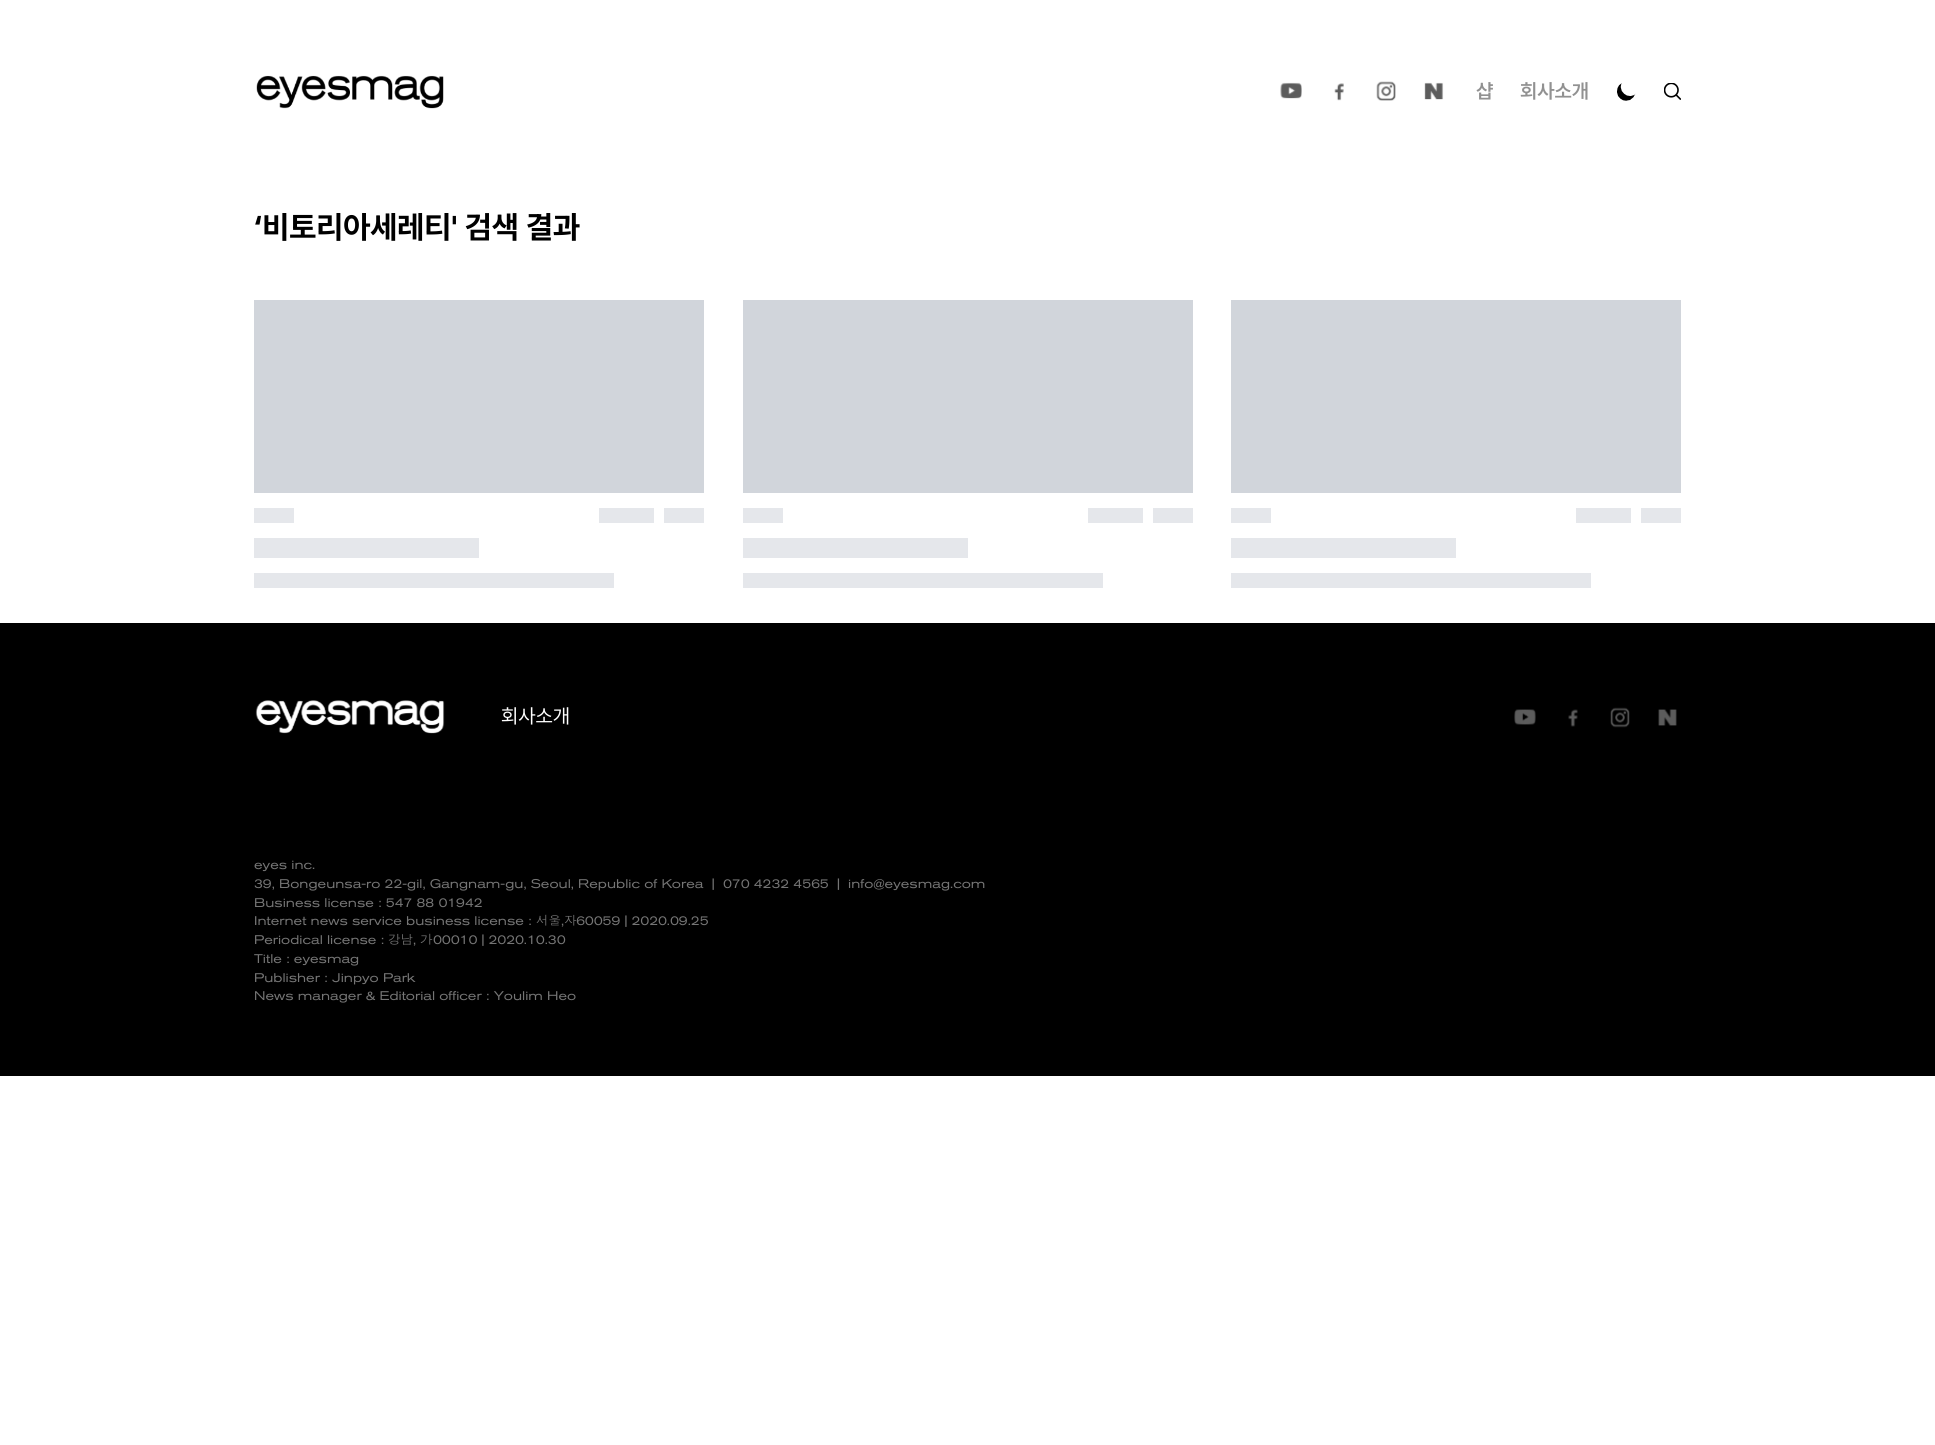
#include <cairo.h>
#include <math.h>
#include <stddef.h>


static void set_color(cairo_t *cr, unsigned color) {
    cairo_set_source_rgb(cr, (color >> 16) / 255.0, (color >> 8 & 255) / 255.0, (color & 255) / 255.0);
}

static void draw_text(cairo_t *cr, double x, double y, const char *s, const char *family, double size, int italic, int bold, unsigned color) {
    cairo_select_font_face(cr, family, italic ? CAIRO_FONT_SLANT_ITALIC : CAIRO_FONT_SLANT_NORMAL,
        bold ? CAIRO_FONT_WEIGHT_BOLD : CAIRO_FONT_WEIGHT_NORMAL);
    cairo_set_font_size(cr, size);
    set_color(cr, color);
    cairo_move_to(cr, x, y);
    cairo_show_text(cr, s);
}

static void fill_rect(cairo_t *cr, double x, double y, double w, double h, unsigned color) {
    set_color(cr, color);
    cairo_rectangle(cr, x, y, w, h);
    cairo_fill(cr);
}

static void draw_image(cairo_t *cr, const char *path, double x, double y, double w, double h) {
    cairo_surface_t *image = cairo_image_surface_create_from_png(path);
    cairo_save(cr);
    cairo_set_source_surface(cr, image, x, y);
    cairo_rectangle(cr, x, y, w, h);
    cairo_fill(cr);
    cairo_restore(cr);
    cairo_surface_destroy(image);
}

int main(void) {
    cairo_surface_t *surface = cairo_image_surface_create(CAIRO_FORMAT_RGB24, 1935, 1445);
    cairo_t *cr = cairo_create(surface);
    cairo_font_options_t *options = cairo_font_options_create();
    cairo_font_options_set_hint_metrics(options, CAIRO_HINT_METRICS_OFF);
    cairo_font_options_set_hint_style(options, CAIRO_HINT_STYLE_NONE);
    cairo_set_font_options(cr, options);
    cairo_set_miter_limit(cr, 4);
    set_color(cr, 0xFFFFFF);
    cairo_paint(cr);
    draw_image(cr, "assets/img1.png", 256, 75, 188, 34);
    draw_image(cr, "assets/img2.png", 1280, 82, 22, 17);
    draw_image(cr, "assets/img3.png", 1334, 83, 10, 18);
    draw_image(cr, "assets/img4.png", 1376, 81, 20, 20);
    draw_image(cr, "assets/img5.png", 1424, 82, 20, 18);
    draw_text(cr, 1476, 98, "샵", "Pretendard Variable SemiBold", 20, 0, 0, 0x919191);
    draw_text(cr, 1520, 98, "회사소개", "Pretendard Variable SemiBold", 20, 0, 0, 0x919191);
    draw_image(cr, "assets/img6.png", 1617, 83, 19, 18);
    draw_image(cr, "assets/img7.png", 1664, 83, 17, 17);
    draw_text(cr, 254, 238, "‘비토리아세레티' 검색 결과", "Pretendard Variable", 31.25, 0, 1, 0x000000);
    fill_rect(cr, 254, 300, 450, 193, 0xD1D5DB);
    fill_rect(cr, 254, 508, 40, 15, 0xE5E7EB);
    fill_rect(cr, 599, 508, 55, 15, 0xE5E7EB);
    fill_rect(cr, 664, 508, 40, 15, 0xE5E7EB);
    fill_rect(cr, 254, 538, 225, 20, 0xE5E7EB);
    fill_rect(cr, 254, 573, 360, 15, 0xE5E7EB);
    fill_rect(cr, 743, 300, 450, 193, 0xD1D5DB);
    fill_rect(cr, 743, 508, 40, 15, 0xE5E7EB);
    fill_rect(cr, 1088, 508, 55, 15, 0xE5E7EB);
    fill_rect(cr, 1153, 508, 40, 15, 0xE5E7EB);
    fill_rect(cr, 743, 538, 225, 20, 0xE5E7EB);
    fill_rect(cr, 743, 573, 360, 15, 0xE5E7EB);
    fill_rect(cr, 1231, 300, 450, 193, 0xD1D5DB);
    fill_rect(cr, 1231, 508, 40, 15, 0xE5E7EB);
    fill_rect(cr, 1576, 508, 55, 15, 0xE5E7EB);
    fill_rect(cr, 1641, 508, 40, 15, 0xE5E7EB);
    fill_rect(cr, 1231, 538, 225, 20, 0xE5E7EB);
    fill_rect(cr, 1231, 573, 360, 15, 0xE5E7EB);
    fill_rect(cr, 0, 623, 1935, 453, 0x000000);
    draw_image(cr, "assets/img8.png", 255, 700, 190, 34);
    draw_text(cr, 501, 723, "회사소개", "Pretendard Variable", 20, 0, 0, 0xFFFFFF);
    draw_image(cr, "assets/img9.png", 1514, 709, 22, 16);
    draw_image(cr, "assets/img10.png", 1568, 709, 10, 18);
    draw_image(cr, "assets/img11.png", 1610, 707, 20, 21);
    draw_image(cr, "assets/img12.png", 1658, 709, 19, 17);
    draw_text(cr, 254, 869, "eyes inc.", "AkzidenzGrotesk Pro", 12.5, 0, 0, 0x757575);
    draw_text(cr, 254, 888, "39, Bongeunsa-ro 22-gil, Gangnam-gu, Seoul, Republic of Korea  |", "AkzidenzGrotesk Pro", 12.5, 0, 0, 0x757575);
    draw_text(cr, 723, 888, "070 4232 4565", "AkzidenzGrotesk Pro", 12.5, 0, 0, 0x757575);
    draw_text(cr, 837, 888, "|", "AkzidenzGrotesk Pro", 12.5, 0, 0, 0x757575);
    draw_text(cr, 848, 888, "info@eyesmag.com", "AkzidenzGrotesk Pro", 12.5, 0, 0, 0x757575);
    draw_text(cr, 254, 907, "Business license : 547 88 01942", "AkzidenzGrotesk Pro", 12.5, 0, 0, 0x757575);
    draw_text(cr, 254, 925, "Internet news service business license :", "AkzidenzGrotesk Pro", 12.5, 0, 0, 0x757575);
    draw_text(cr, 536, 925, "서울", "Dotum", 12.5, 0, 0, 0x757575);
    draw_text(cr, 561, 925, ",", "AkzidenzGrotesk Pro", 12.5, 0, 0, 0x757575);
    draw_text(cr, 564, 925, "자", "Dotum", 12.5, 0, 0, 0x757575);
    draw_text(cr, 576, 925, "60059 | 2020.09.25", "AkzidenzGrotesk Pro", 12.5, 0, 0, 0x757575);
    draw_text(cr, 254, 944, "Periodical license :", "AkzidenzGrotesk Pro", 12.5, 0, 0, 0x757575);
    draw_text(cr, 388, 944, "강남", "Dotum", 12.5, 0, 0, 0x757575);
    draw_text(cr, 413, 944, ",", "AkzidenzGrotesk Pro", 12.5, 0, 0, 0x757575);
    draw_text(cr, 420, 944, "가", "Dotum", 12.5, 0, 0, 0x757575);
    draw_text(cr, 433, 944, "00010 | 2020.10.30", "AkzidenzGrotesk Pro", 12.5, 0, 0, 0x757575);
    draw_text(cr, 254, 963, "Title : eyesmag", "AkzidenzGrotesk Pro", 12.5, 0, 0, 0x757575);
    draw_text(cr, 254, 982, "Publisher : Jinpyo Park", "AkzidenzGrotesk Pro", 12.5, 0, 0, 0x757575);
    draw_text(cr, 254, 1000, "News manager & Editorial officer : Youlim Heo", "AkzidenzGrotesk Pro", 12.5, 0, 0, 0x757575);
    cairo_surface_write_to_png(surface, "output.png");
    cairo_font_options_destroy(options);
    cairo_destroy(cr);
    cairo_surface_destroy(surface);
    return 0;
}
